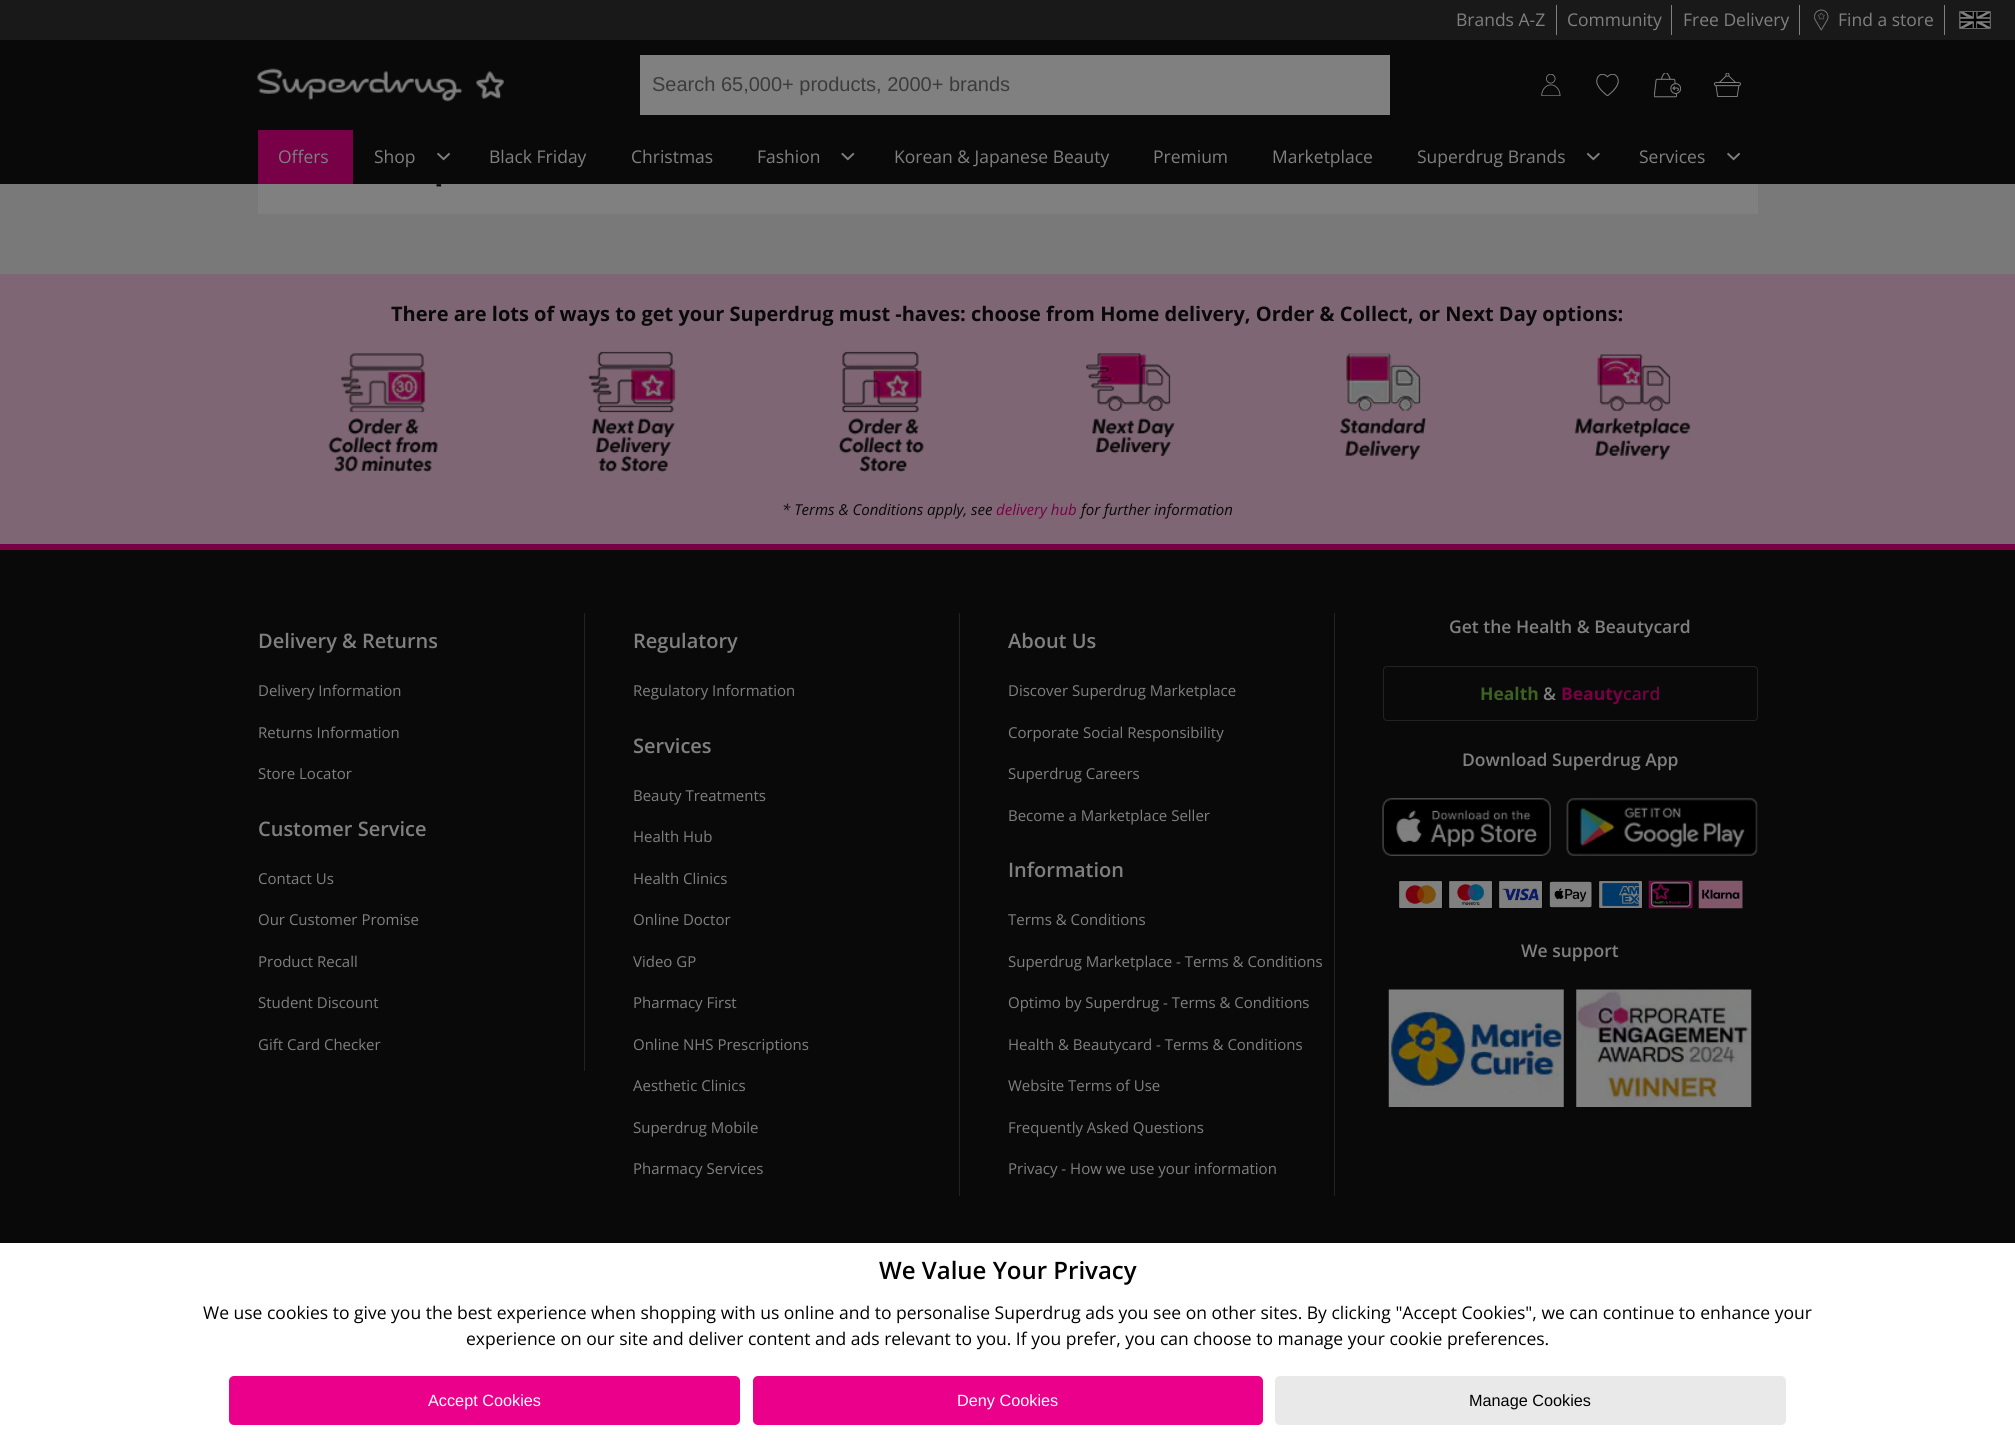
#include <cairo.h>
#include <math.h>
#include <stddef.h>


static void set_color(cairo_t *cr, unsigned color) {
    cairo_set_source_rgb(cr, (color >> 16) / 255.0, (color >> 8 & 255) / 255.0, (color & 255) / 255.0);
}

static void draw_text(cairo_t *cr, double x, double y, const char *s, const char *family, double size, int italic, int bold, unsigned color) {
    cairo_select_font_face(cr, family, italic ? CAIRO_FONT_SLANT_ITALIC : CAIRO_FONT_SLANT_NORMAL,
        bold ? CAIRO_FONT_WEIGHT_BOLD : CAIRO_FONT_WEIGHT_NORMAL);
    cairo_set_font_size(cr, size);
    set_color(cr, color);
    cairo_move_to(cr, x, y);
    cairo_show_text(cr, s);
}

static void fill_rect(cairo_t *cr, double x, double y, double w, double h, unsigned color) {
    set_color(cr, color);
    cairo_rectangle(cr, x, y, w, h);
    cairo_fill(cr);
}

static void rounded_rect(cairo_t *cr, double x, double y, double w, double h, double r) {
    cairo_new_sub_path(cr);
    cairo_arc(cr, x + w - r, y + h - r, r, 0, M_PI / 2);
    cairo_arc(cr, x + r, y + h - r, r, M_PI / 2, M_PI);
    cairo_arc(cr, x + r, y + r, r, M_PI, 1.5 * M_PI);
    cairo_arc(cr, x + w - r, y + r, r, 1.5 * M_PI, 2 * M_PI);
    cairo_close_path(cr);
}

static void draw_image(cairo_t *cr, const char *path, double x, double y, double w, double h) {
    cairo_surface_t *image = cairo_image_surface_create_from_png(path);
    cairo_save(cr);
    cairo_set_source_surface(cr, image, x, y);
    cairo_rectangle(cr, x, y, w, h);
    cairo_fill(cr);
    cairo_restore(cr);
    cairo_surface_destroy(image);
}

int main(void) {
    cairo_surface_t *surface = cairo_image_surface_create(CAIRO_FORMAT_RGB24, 2015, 1450);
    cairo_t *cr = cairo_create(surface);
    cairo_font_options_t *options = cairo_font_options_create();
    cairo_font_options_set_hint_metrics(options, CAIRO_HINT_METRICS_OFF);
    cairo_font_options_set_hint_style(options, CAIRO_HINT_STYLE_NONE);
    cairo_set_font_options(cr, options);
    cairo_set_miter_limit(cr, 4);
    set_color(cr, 0x797979);
    cairo_paint(cr);
    fill_rect(cr, 0, 40, 2015, 144, 0x090909);
    fill_rect(cr, 0, 0, 2015, 40, 0x19191A);
    draw_text(cr, 1456, 26, "Brands A-Z", "Open Sans", 17.5, 0, 0, 0x808080);
    fill_rect(cr, 1556, 5, 1, 30, 0x808080);
    draw_text(cr, 1567, 26, "Community", "Open Sans", 17.5, 0, 0, 0x808080);
    fill_rect(cr, 1671, 5, 1, 30, 0x808080);
    draw_text(cr, 1683, 26, "Free Delivery", "Open Sans", 17.5, 0, 0, 0x808080);
    fill_rect(cr, 1799, 5, 1, 30, 0x808080);
    draw_image(cr, "assets/img1.png", 1814, 9, 15, 22);
    draw_text(cr, 1838, 26, "Find a store", "Open Sans", 17.5, 0, 0, 0x808080);
    fill_rect(cr, 1944, 5, 1, 30, 0x808080);
    draw_image(cr, "assets/img2.png", 1959, 11, 32, 18);
    draw_image(cr, "assets/img3.png", 257, 68, 247, 34);
    fill_rect(cr, 640, 55, 750, 60, 0x808080);
    draw_text(cr, 652, 91, "Search 65,000+ products, 2000+ brands", "Liberation Sans", 20, 0, 0, 0x3B3B3B);
    draw_image(cr, "assets/img4.png", 1541, 74, 20, 22);
    draw_image(cr, "assets/img5.png", 1596, 74, 23, 22);
    draw_image(cr, "assets/img6.png", 1654, 73, 27, 25);
    draw_image(cr, "assets/img7.png", 1714, 73, 27, 24);
    fill_rect(cr, 258, 130, 95, 54, 0x770047);
    draw_text(cr, 278, 163, "Offers", "Open Sans", 17.5, 0, 0, 0x808080);
    draw_text(cr, 374, 163, "Shop", "Open Sans", 17.5, 0, 0, 0x808080);
    draw_image(cr, "assets/img8.png", 437, 152, 14, 9);
    draw_text(cr, 489, 163, "Black Friday", "Open Sans", 17.5, 0, 0, 0x808080);
    draw_text(cr, 631, 163, "Christmas", "Open Sans", 17.5, 0, 0, 0x808080);
    draw_text(cr, 757, 163, "Fashion", "Open Sans", 17.5, 0, 0, 0x808080);
    draw_image(cr, "assets/img9.png", 841, 152, 14, 9);
    draw_text(cr, 894, 163, "Korean & Japanese Beauty", "Open Sans", 17.5, 0, 0, 0x808080);
    draw_text(cr, 1153, 163, "Premium", "Open Sans", 17.5, 0, 0, 0x808080);
    draw_text(cr, 1272, 163, "Marketplace", "Open Sans", 17.5, 0, 0, 0x808080);
    draw_text(cr, 1417, 163, "Superdrug Brands", "Open Sans", 17.5, 0, 0, 0x808080);
    draw_image(cr, "assets/img10.png", 1586, 152, 14, 9);
    draw_text(cr, 1639, 163, "Services", "Open Sans", 17.5, 0, 0, 0x808080);
    draw_image(cr, "assets/img8.png", 1727, 152, 14, 9);
    fill_rect(cr, 258, 184, 1500, 30, 0x808080);
    draw_text(cr, 436, 190, "-", "Open Sans", 17.5, 0, 1, 0x000000);
    fill_rect(cr, 0, 550, 2015, 693, 0x090909);
    fill_rect(cr, 0, 274, 2015, 270, 0x7E6674);
    fill_rect(cr, 0, 544, 2015, 6, 0x770047);
    draw_text(cr, 391, 321, "There are lots of ways to get your Superdrug must -haves: choose from Home delivery, Order & Collect, or Next Day options:", "Open Sans", 20, 0, 1, 0x090909);
    draw_image(cr, "assets/img11.png", 328, 353, 110, 120);
    draw_image(cr, "assets/img12.png", 588, 351, 88, 122);
    draw_image(cr, "assets/img13.png", 838, 351, 86, 122);
    draw_image(cr, "assets/img14.png", 1086, 353, 90, 103);
    draw_image(cr, "assets/img15.png", 1339, 353, 88, 107);
    draw_image(cr, "assets/img16.png", 1574, 354, 117, 106);
    draw_text(cr, 782, 515, "* Terms & Conditions apply, see", "Open Sans", 15, 1, 0, 0x090909);
    draw_text(cr, 996, 515, "delivery hub", "Open Sans", 15, 1, 0, 0x770044);
    draw_text(cr, 1081, 515, "for further information", "Open Sans", 15, 1, 0, 0x090909);
    draw_text(cr, 258, 648, "Delivery & Returns", "Open Sans SemiBold", 20, 0, 0, 0x808080);
    draw_text(cr, 258, 696, "Delivery Information", "Open Sans", 15, 0, 0, 0x808080);
    draw_text(cr, 258, 738, "Returns Information", "Open Sans", 15, 0, 0, 0x808080);
    draw_text(cr, 258, 779, "Store Locator", "Open Sans", 15, 0, 0, 0x808080);
    fill_rect(cr, 584, 613, 1, 458, 0x222222);
    draw_text(cr, 258, 836, "Customer Service", "Open Sans SemiBold", 20, 0, 0, 0x808080);
    draw_text(cr, 258, 884, "Contact Us", "Open Sans", 15, 0, 0, 0x808080);
    draw_text(cr, 258, 925, "Our Customer Promise", "Open Sans", 15, 0, 0, 0x808080);
    draw_text(cr, 258, 967, "Product Recall", "Open Sans", 15, 0, 0, 0x808080);
    draw_text(cr, 258, 1008, "Student Discount", "Open Sans", 15, 0, 0, 0x808080);
    draw_text(cr, 258, 1050, "Gift Card Checker", "Open Sans", 15, 0, 0, 0x808080);
    draw_text(cr, 633, 648, "Regulatory", "Open Sans SemiBold", 20, 0, 0, 0x808080);
    draw_text(cr, 633, 696, "Regulatory Information", "Open Sans", 15, 0, 0, 0x808080);
    fill_rect(cr, 959, 613, 1, 583, 0x222222);
    draw_text(cr, 633, 753, "Services", "Open Sans SemiBold", 20, 0, 0, 0x808080);
    draw_text(cr, 633, 801, "Beauty Treatments", "Open Sans", 15, 0, 0, 0x808080);
    draw_text(cr, 633, 842, "Health Hub", "Open Sans", 15, 0, 0, 0x808080);
    draw_text(cr, 633, 884, "Health Clinics", "Open Sans", 15, 0, 0, 0x808080);
    draw_text(cr, 633, 925, "Online Doctor", "Open Sans", 15, 0, 0, 0x808080);
    draw_text(cr, 633, 967, "Video GP", "Open Sans", 15, 0, 0, 0x808080);
    draw_text(cr, 633, 1008, "Pharmacy First", "Open Sans", 15, 0, 0, 0x808080);
    draw_text(cr, 633, 1050, "Online NHS Prescriptions", "Open Sans", 15, 0, 0, 0x808080);
    draw_text(cr, 633, 1091, "Aesthetic Clinics", "Open Sans", 15, 0, 0, 0x808080);
    draw_text(cr, 633, 1133, "Superdrug Mobile", "Open Sans", 15, 0, 0, 0x808080);
    draw_text(cr, 633, 1174, "Pharmacy Services", "Open Sans", 15, 0, 0, 0x808080);
    draw_text(cr, 1008, 648, "About Us", "Open Sans SemiBold", 20, 0, 0, 0x808080);
    draw_text(cr, 1008, 696, "Discover Superdrug Marketplace", "Open Sans", 15, 0, 0, 0x808080);
    draw_text(cr, 1008, 738, "Corporate Social Responsibility", "Open Sans", 15, 0, 0, 0x808080);
    draw_text(cr, 1008, 779, "Superdrug Careers", "Open Sans", 15, 0, 0, 0x808080);
    draw_text(cr, 1008, 821, "Become a Marketplace Seller", "Open Sans", 15, 0, 0, 0x808080);
    fill_rect(cr, 1334, 613, 1, 583, 0x222222);
    draw_text(cr, 1008, 877, "Information", "Open Sans SemiBold", 20, 0, 0, 0x808080);
    draw_text(cr, 1008, 925, "Terms & Conditions", "Open Sans", 15, 0, 0, 0x808080);
    draw_text(cr, 1008, 967, "Superdrug Marketplace - Terms & Conditions", "Open Sans", 15, 0, 0, 0x808080);
    draw_text(cr, 1008, 1008, "Optimo by Superdrug - Terms & Conditions", "Open Sans", 15, 0, 0, 0x808080);
    draw_text(cr, 1008, 1050, "Health & Beautycard - Terms & Conditions", "Open Sans", 15, 0, 0, 0x808080);
    draw_text(cr, 1008, 1091, "Website Terms of Use", "Open Sans", 15, 0, 0, 0x808080);
    draw_text(cr, 1008, 1133, "Frequently Asked Questions", "Open Sans", 15, 0, 0, 0x808080);
    draw_text(cr, 1008, 1174, "Privacy - How we use your information", "Open Sans", 15, 0, 0, 0x808080);
    draw_text(cr, 1449, 633, "Get the Health & Beautycard", "Open Sans SemiBold", 17.5, 0, 0, 0x808080);
    rounded_rect(cr, 1383.5, 666.5, 374, 54, 3.5);
    set_color(cr, 0x222222);
    cairo_set_line_width(cr, 1);
    cairo_stroke(cr);
    draw_text(cr, 1480, 700, "Health", "Open Sans", 17.5, 0, 1, 0x3D6123);
    draw_text(cr, 1543, 700, "&", "Open Sans SemiBold", 17.5, 0, 0, 0x808080);
    draw_text(cr, 1561, 700, "Beauty", "Open Sans", 17.5, 0, 1, 0x770044);
    draw_text(cr, 1623, 700, "card", "Open Sans SemiBold", 17.5, 0, 0, 0x770044);
    draw_text(cr, 1462, 766, "Download Superdrug App", "Open Sans SemiBold", 17.5, 0, 0, 0x808080);
    draw_image(cr, "assets/img17.png", 1382, 798, 376, 58);
    draw_image(cr, "assets/img18.png", 1398, 880, 45, 29);
    draw_image(cr, "assets/img19.png", 1448, 880, 45, 29);
    draw_image(cr, "assets/img20.png", 1498, 880, 45, 29);
    draw_image(cr, "assets/img21.png", 1548, 880, 45, 29);
    draw_image(cr, "assets/img22.png", 1598, 880, 45, 29);
    draw_image(cr, "assets/img23.png", 1648, 880, 45, 29);
    draw_image(cr, "assets/img24.png", 1698, 880, 45, 29);
    draw_text(cr, 1521, 957, "We support", "Open Sans SemiBold", 17.5, 0, 0, 0x808080);
    draw_image(cr, "assets/img25.png", 1388, 989, 176, 118);
    draw_image(cr, "assets/img26.png", 1576, 989, 176, 118);
    fill_rect(cr, 0, 1243, 2015, 207, 0xFFFFFF);
    draw_text(cr, 879, 1279, "We Value Your Privacy", "Open Sans SemiBold", 24, 0, 0, 0x000000);
    draw_text(cr, 203, 1319, "We use cookies to give you the best experience when shopping with us online and to personalise Superdrug ads you see on other sites. By clicking \"Accept Cookies\", we can continue to enhance your", "Open Sans", 17.5, 0, 0, 0x000000);
    draw_text(cr, 466, 1345, "experience on our site and deliver content and ads relevant to you. If you prefer, you can choose to manage your cookie preferences.", "Open Sans", 17.5, 0, 0, 0x000000);
    set_color(cr, 0xEB008B);
    rounded_rect(cr, 229, 1376, 511, 49, 5);
    cairo_fill(cr);
    draw_text(cr, 428, 1406, "Accept Cookies", "Liberation Sans", 16.25, 0, 0, 0xFFFFFF);
    set_color(cr, 0xEB008B);
    rounded_rect(cr, 753, 1376, 510, 49, 5);
    cairo_fill(cr);
    draw_text(cr, 957, 1406, "Deny Cookies", "Liberation Sans", 16.25, 0, 0, 0xFFFFFF);
    set_color(cr, 0xE9E9E9);
    rounded_rect(cr, 1275, 1376, 511, 49, 5);
    cairo_fill(cr);
    draw_text(cr, 1469, 1406, "Manage Cookies", "Liberation Sans", 16.25, 0, 0, 0x000000);
    cairo_surface_write_to_png(surface, "output.png");
    cairo_font_options_destroy(options);
    cairo_destroy(cr);
    cairo_surface_destroy(surface);
    return 0;
}
